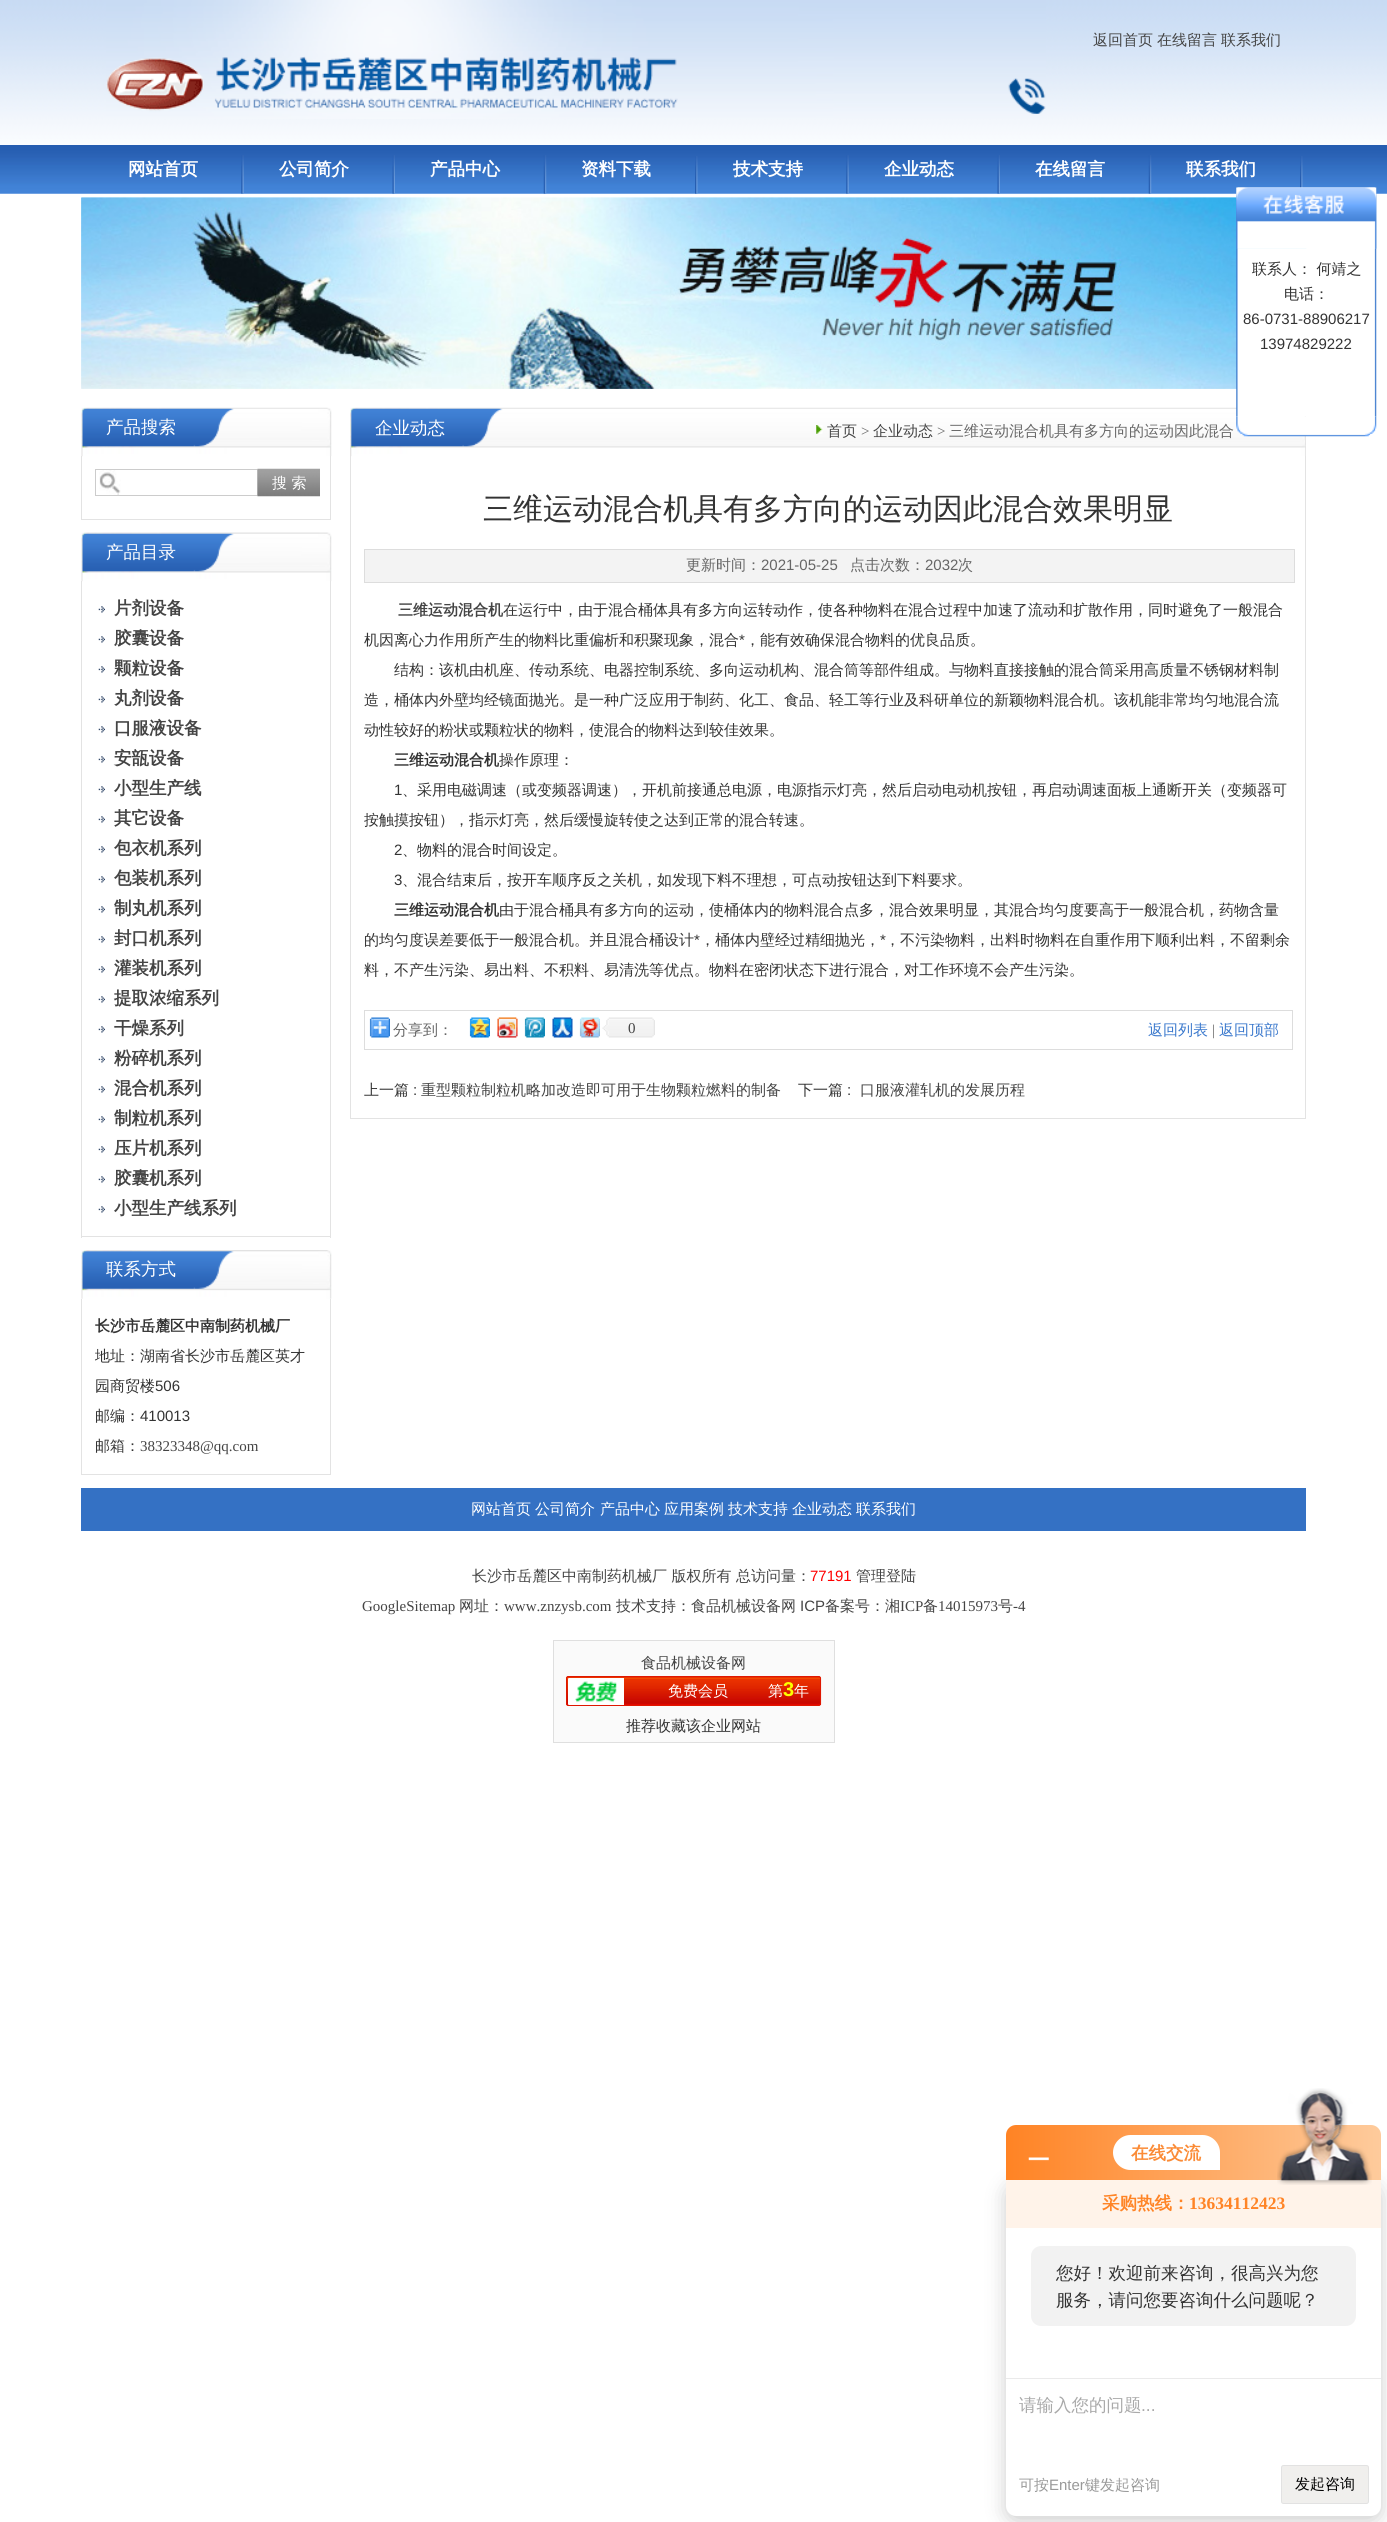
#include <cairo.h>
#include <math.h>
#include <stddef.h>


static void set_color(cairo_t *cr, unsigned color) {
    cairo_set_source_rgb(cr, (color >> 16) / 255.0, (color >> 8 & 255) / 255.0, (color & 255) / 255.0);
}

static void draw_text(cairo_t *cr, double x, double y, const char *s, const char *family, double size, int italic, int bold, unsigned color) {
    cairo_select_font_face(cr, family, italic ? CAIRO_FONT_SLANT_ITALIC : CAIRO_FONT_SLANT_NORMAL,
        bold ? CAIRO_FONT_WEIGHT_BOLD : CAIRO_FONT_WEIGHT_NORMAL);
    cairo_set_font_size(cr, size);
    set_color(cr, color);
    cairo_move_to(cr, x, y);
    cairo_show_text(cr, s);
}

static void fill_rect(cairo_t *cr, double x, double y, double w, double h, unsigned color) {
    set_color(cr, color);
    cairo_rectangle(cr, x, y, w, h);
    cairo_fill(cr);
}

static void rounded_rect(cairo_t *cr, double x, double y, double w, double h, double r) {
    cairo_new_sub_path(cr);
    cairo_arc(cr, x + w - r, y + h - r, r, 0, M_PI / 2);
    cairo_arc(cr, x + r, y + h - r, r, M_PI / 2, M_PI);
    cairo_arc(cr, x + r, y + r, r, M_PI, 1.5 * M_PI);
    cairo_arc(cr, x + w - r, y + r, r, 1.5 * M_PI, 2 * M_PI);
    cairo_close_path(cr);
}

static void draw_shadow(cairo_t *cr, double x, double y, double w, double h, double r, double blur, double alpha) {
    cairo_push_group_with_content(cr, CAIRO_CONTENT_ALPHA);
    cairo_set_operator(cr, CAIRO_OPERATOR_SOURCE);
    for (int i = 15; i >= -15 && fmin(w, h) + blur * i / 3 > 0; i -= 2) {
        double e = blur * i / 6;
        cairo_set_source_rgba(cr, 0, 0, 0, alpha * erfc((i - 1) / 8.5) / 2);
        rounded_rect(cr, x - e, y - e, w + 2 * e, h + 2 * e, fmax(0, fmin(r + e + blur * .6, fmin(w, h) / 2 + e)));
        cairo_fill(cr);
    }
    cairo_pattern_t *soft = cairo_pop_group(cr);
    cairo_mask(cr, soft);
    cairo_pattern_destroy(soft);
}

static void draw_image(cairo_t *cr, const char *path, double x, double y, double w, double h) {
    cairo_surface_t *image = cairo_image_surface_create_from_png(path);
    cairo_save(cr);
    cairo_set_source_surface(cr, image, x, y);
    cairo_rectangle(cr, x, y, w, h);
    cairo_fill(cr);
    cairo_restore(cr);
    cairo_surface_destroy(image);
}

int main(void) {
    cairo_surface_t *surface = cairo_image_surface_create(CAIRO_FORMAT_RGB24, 1387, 2522);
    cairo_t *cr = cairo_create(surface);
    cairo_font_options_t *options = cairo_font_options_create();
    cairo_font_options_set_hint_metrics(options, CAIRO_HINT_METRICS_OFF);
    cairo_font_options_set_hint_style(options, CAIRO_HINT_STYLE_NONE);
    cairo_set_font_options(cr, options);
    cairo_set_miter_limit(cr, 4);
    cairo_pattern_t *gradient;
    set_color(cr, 0xFFFFFF);
    cairo_paint(cr);
    draw_image(cr, "assets/img1.png", 0, 0, 1387, 145);
    draw_image(cr, "assets/img2.png", 106, 0, 940, 119);
    draw_text(cr, 1093, 45, "返回首页", "WenQuanYi Zen Hei Medium", 15, 0, 0, 0x444444);
    draw_text(cr, 1157, 45, "在线留言", "WenQuanYi Zen Hei Medium", 15, 0, 0, 0x444444);
    draw_text(cr, 1221, 45, "联系我们", "WenQuanYi Zen Hei Medium", 15, 0, 0, 0x444444);
    draw_image(cr, "assets/img3.png", 0, 145, 1387, 49);
    draw_image(cr, "assets/img4.png", 241, 155, 3, 39);
    draw_text(cr, 128, 175, "网站首页", "WenQuanYi Zen Hei", 17.5, 0, 1, 0xFFFFFF);
    draw_image(cr, "assets/img5.png", 392, 155, 3, 39);
    draw_text(cr, 279, 175, "公司简介", "WenQuanYi Zen Hei", 17.5, 0, 1, 0xFFFFFF);
    draw_image(cr, "assets/img6.png", 543, 155, 4, 39);
    draw_text(cr, 430, 175, "产品中心", "WenQuanYi Zen Hei", 17.5, 0, 1, 0xFFFFFF);
    draw_image(cr, "assets/img7.png", 695, 156, 3, 38);
    draw_text(cr, 581, 175, "资料下载", "WenQuanYi Zen Hei", 17.5, 0, 1, 0xFFFFFF);
    draw_image(cr, "assets/img4.png", 846, 155, 3, 39);
    draw_text(cr, 733, 175, "技术支持", "WenQuanYi Zen Hei", 17.5, 0, 1, 0xFFFFFF);
    draw_image(cr, "assets/img5.png", 997, 155, 3, 39);
    draw_text(cr, 884, 175, "企业动态", "WenQuanYi Zen Hei", 17.5, 0, 1, 0xFFFFFF);
    draw_image(cr, "assets/img6.png", 1148, 155, 4, 39);
    draw_text(cr, 1035, 175, "在线留言", "WenQuanYi Zen Hei", 17.5, 0, 1, 0xFFFFFF);
    draw_image(cr, "assets/img8.png", 1300, 156, 3, 32);
    draw_text(cr, 1186, 175, "联系我们", "WenQuanYi Zen Hei", 17.5, 0, 1, 0xFFFFFF);
    draw_image(cr, "assets/img9.png", 81, 197, 1226, 192);
    draw_image(cr, "assets/img10.png", 81, 197, 1226, 192);
    draw_image(cr, "assets/img11.png", 1236, 187, 141, 62);
    draw_image(cr, "assets/img21.png", 350, 407, 956, 50);
    draw_image(cr, "assets/img13.png", 1236, 248, 141, 169);
    draw_image(cr, "assets/img12.png", 1236, 187, 141, 62);
    draw_text(cr, 1252, 274, "联系人： 何靖之", "WenQuanYi Zen Hei Medium", 15, 0, 0, 0x333333);
    draw_text(cr, 1284, 299, "电话：", "WenQuanYi Zen Hei Medium", 15, 0, 0, 0x333333);
    draw_text(cr, 1243, 324, "86-0731-88906217", "Liberation Sans", 15, 0, 0, 0x333333);
    draw_text(cr, 1260, 349, "13974829222", "Liberation Sans", 15, 0, 0, 0x333333);
    draw_image(cr, "assets/img14.png", 1236, 416, 141, 21);
    draw_image(cr, "assets/img15.png", 81, 407, 251, 50);
    draw_text(cr, 106, 433, "产品搜索", "WenQuanYi Zen Hei Medium", 17.5, 0, 0, 0xFFFFFF);
    fill_rect(cr, 330, 456, 1, 64, 0xE3E3E3);
    fill_rect(cr, 81, 519, 250, 1, 0xE3E3E3);
    fill_rect(cr, 81, 456, 1, 64, 0xE3E3E3);
    draw_image(cr, "assets/img16.png", 99, 470, 22, 25);
    cairo_rectangle(cr, 95.5, 469.5, 162, 26);
    set_color(cr, 0xCCCCCC);
    cairo_set_line_width(cr, 1);
    cairo_stroke(cr);
    draw_image(cr, "assets/img17.png", 257, 468, 63, 29);
    draw_text(cr, 272, 488, "搜 索", "WenQuanYi Zen Hei Medium", 15, 0, 0, 0xFFFFFF);
    draw_image(cr, "assets/img18.png", 81, 532, 251, 50);
    draw_text(cr, 106, 558, "产品目录", "WenQuanYi Zen Hei Medium", 17.5, 0, 0, 0xFFFFFF);
    fill_rect(cr, 330, 581, 1, 657, 0xE3E3E3);
    fill_rect(cr, 81, 1236, 250, 1, 0xE3E3E3);
    fill_rect(cr, 81, 581, 1, 657, 0xE3E3E3);
    draw_image(cr, "assets/img19.png", 98, 606, 7, 7);
    draw_text(cr, 114, 614, "片剂设备", "WenQuanYi Zen Hei", 17.5, 0, 1, 0x444444);
    draw_image(cr, "assets/img19.png", 98, 636, 7, 7);
    draw_text(cr, 114, 644, "胶囊设备", "WenQuanYi Zen Hei", 17.5, 0, 1, 0x444444);
    draw_image(cr, "assets/img19.png", 98, 666, 7, 7);
    draw_text(cr, 114, 674, "颗粒设备", "WenQuanYi Zen Hei", 17.5, 0, 1, 0x444444);
    draw_image(cr, "assets/img19.png", 98, 696, 7, 7);
    draw_text(cr, 114, 704, "丸剂设备", "WenQuanYi Zen Hei", 17.5, 0, 1, 0x444444);
    draw_image(cr, "assets/img19.png", 98, 726, 7, 7);
    draw_text(cr, 114, 734, "口服液设备", "WenQuanYi Zen Hei", 17.5, 0, 1, 0x444444);
    draw_image(cr, "assets/img19.png", 98, 756, 7, 7);
    draw_text(cr, 114, 764, "安瓿设备", "WenQuanYi Zen Hei", 17.5, 0, 1, 0x444444);
    draw_image(cr, "assets/img19.png", 98, 786, 7, 7);
    draw_text(cr, 114, 794, "小型生产线", "WenQuanYi Zen Hei", 17.5, 0, 1, 0x444444);
    draw_image(cr, "assets/img19.png", 98, 816, 7, 7);
    draw_text(cr, 114, 824, "其它设备", "WenQuanYi Zen Hei", 17.5, 0, 1, 0x444444);
    draw_image(cr, "assets/img19.png", 98, 846, 7, 7);
    draw_text(cr, 114, 854, "包衣机系列", "WenQuanYi Zen Hei", 17.5, 0, 1, 0x444444);
    draw_image(cr, "assets/img19.png", 98, 876, 7, 7);
    draw_text(cr, 114, 884, "包装机系列", "WenQuanYi Zen Hei", 17.5, 0, 1, 0x444444);
    draw_image(cr, "assets/img19.png", 98, 906, 7, 7);
    draw_text(cr, 114, 914, "制丸机系列", "WenQuanYi Zen Hei", 17.5, 0, 1, 0x444444);
    draw_image(cr, "assets/img19.png", 98, 936, 7, 7);
    draw_text(cr, 114, 944, "封口机系列", "WenQuanYi Zen Hei", 17.5, 0, 1, 0x444444);
    draw_image(cr, "assets/img19.png", 98, 966, 7, 7);
    draw_text(cr, 114, 974, "灌装机系列", "WenQuanYi Zen Hei", 17.5, 0, 1, 0x444444);
    draw_image(cr, "assets/img19.png", 98, 996, 7, 7);
    draw_text(cr, 114, 1004, "提取浓缩系列", "WenQuanYi Zen Hei", 17.5, 0, 1, 0x444444);
    draw_image(cr, "assets/img19.png", 98, 1026, 7, 7);
    draw_text(cr, 114, 1034, "干燥系列", "WenQuanYi Zen Hei", 17.5, 0, 1, 0x444444);
    draw_image(cr, "assets/img19.png", 98, 1056, 7, 7);
    draw_text(cr, 114, 1064, "粉碎机系列", "WenQuanYi Zen Hei", 17.5, 0, 1, 0x444444);
    draw_image(cr, "assets/img19.png", 98, 1086, 7, 7);
    draw_text(cr, 114, 1094, "混合机系列", "WenQuanYi Zen Hei", 17.5, 0, 1, 0x444444);
    draw_image(cr, "assets/img19.png", 98, 1116, 7, 7);
    draw_text(cr, 114, 1124, "制粒机系列", "WenQuanYi Zen Hei", 17.5, 0, 1, 0x444444);
    draw_image(cr, "assets/img19.png", 98, 1146, 7, 7);
    draw_text(cr, 114, 1154, "压片机系列", "WenQuanYi Zen Hei", 17.5, 0, 1, 0x444444);
    draw_image(cr, "assets/img19.png", 98, 1176, 7, 7);
    draw_text(cr, 114, 1184, "胶囊机系列", "WenQuanYi Zen Hei", 17.5, 0, 1, 0x444444);
    draw_image(cr, "assets/img19.png", 98, 1206, 7, 7);
    draw_text(cr, 114, 1214, "小型生产线系列", "WenQuanYi Zen Hei", 17.5, 0, 1, 0x444444);
    draw_image(cr, "assets/img20.png", 81, 1250, 251, 49);
    draw_text(cr, 106, 1275, "联系方式", "WenQuanYi Zen Hei Medium", 17.5, 0, 0, 0xFFFFFF);
    fill_rect(cr, 330, 1299, 1, 176, 0xE3E3E3);
    fill_rect(cr, 81, 1474, 250, 1, 0xE3E3E3);
    fill_rect(cr, 81, 1299, 1, 176, 0xE3E3E3);
    draw_text(cr, 95, 1331, "长沙市岳麓区中南制药机械厂", "WenQuanYi Zen Hei", 15, 0, 1, 0x333333);
    draw_text(cr, 95, 1361, "地址：湖南省长沙市岳麓区英才", "WenQuanYi Zen Hei Medium", 15, 0, 0, 0x333333);
    draw_text(cr, 95, 1391, "园商贸楼", "WenQuanYi Zen Hei Medium", 15, 0, 0, 0x333333);
    draw_text(cr, 155, 1391, "506", "Liberation Sans", 15, 0, 0, 0x333333);
    draw_text(cr, 95, 1421, "邮编：", "WenQuanYi Zen Hei Medium", 15, 0, 0, 0x333333);
    draw_text(cr, 140, 1421, "410013", "Liberation Sans", 15, 0, 0, 0x333333);
    draw_text(cr, 95, 1451, "邮箱：", "WenQuanYi Zen Hei Medium", 15, 0, 0, 0x333333);
    draw_text(cr, 140, 1451, "38323348@qq.com", "Liberation Serif", 15, 0, 0, 0x444444);
    draw_text(cr, 375, 434, "企业动态", "WenQuanYi Zen Hei Medium", 17.5, 0, 0, 0xFFFFFF);
    draw_image(cr, "assets/img22.png", 816, 425, 7, 9);
    draw_text(cr, 827, 436, "首页", "WenQuanYi Zen Hei Medium", 15, 0, 0, 0x444444);
    draw_text(cr, 861, 436, ">", "Liberation Serif", 15, 0, 0, 0x666666);
    draw_text(cr, 873, 436, "企业动态", "WenQuanYi Zen Hei Medium", 15, 0, 0, 0x444444);
    draw_text(cr, 937, 436, ">", "Liberation Serif", 15, 0, 0, 0x666666);
    draw_text(cr, 949, 436, "三维运动混合机具有多方向的运动因此混合", "WenQuanYi Zen Hei Medium", 15, 0, 0, 0x666666);
    fill_rect(cr, 1305, 456, 1, 663, 0xE3E3E3);
    fill_rect(cr, 350, 1118, 956, 1, 0xE3E3E3);
    fill_rect(cr, 350, 456, 1, 663, 0xE3E3E3);
    draw_text(cr, 483, 519, "三维运动混合机具有多方向的运动因此混合效果明显", "WenQuanYi Zen Hei Medium", 30, 0, 0, 0x333333);
    set_color(cr, 0xF3F3F3);
    cairo_rectangle(cr, 364.5, 549.5, 930, 33);
    cairo_fill_preserve(cr);
    set_color(cr, 0xDDDDDD);
    cairo_stroke(cr);
    draw_text(cr, 686, 570, "更新时间：", "WenQuanYi Zen Hei Medium", 15, 0, 0, 0x666666);
    draw_text(cr, 761, 570, "2021-05-25", "Liberation Sans", 15, 0, 0, 0x666666);
    draw_text(cr, 850, 570, "点击次数：", "WenQuanYi Zen Hei Medium", 15, 0, 0, 0x666666);
    draw_text(cr, 925, 570, "2032", "Liberation Sans", 15, 0, 0, 0x666666);
    draw_text(cr, 958, 570, "次", "WenQuanYi Zen Hei Medium", 15, 0, 0, 0x666666);
    draw_text(cr, 398, 615, "三维运动混合机", "WenQuanYi Zen Hei", 15, 0, 1, 0x444444);
    draw_text(cr, 503, 615, "在运行中，由于混合桶体具有多方向运转动作，使各种物料在混合过程中加速了流动和扩散作用，同时避免了一般混合", "WenQuanYi Zen Hei Medium", 15, 0, 0, 0x333333);
    draw_text(cr, 364, 645, "机因离心力作用所产生的物料比重偏析和积聚现象，混合", "WenQuanYi Zen Hei Medium", 15, 0, 0, 0x333333);
    draw_text(cr, 739, 645, "*", "Liberation Sans", 15, 0, 0, 0x333333);
    draw_text(cr, 745, 645, "，能有效确保混合物料的优良品质。", "WenQuanYi Zen Hei Medium", 15, 0, 0, 0x333333);
    draw_text(cr, 394, 675, "结构：该机由机座、传动系统、电器控制系统、多向运动机构、混合筒等部件组成。与物料直接接触的混合筒采用高质量不锈钢材料制", "WenQuanYi Zen Hei Medium", 15, 0, 0, 0x333333);
    draw_text(cr, 364, 705, "造，桶体内外壁均经镜面抛光。是一种广泛应用于制药、化工、食品、轻工等行业及科研单位的新颖物料混合机。该机能非常均匀地混合流", "WenQuanYi Zen Hei Medium", 15, 0, 0, 0x333333);
    draw_text(cr, 364, 735, "动性较好的粉状或颗粒状的物料，使混合的物料达到较佳效果。", "WenQuanYi Zen Hei Medium", 15, 0, 0, 0x333333);
    draw_text(cr, 394, 765, "三维运动混合机", "WenQuanYi Zen Hei", 15, 0, 1, 0x333333);
    draw_text(cr, 499, 765, "操作原理：", "WenQuanYi Zen Hei Medium", 15, 0, 0, 0x333333);
    draw_text(cr, 394, 795, "1", "Liberation Sans", 15, 0, 0, 0x333333);
    draw_text(cr, 402, 795, "、采用电磁调速（或变频器调速），开机前接通总电源，电源指示灯亮，然后启动电动机按钮，再启动调速面板上通断开关（变频器可", "WenQuanYi Zen Hei Medium", 15, 0, 0, 0x333333);
    draw_text(cr, 364, 825, "按触摸按钮），指示灯亮，然后缓慢旋转使之达到正常的混合转速。", "WenQuanYi Zen Hei Medium", 15, 0, 0, 0x333333);
    draw_text(cr, 394, 855, "2", "Liberation Sans", 15, 0, 0, 0x333333);
    draw_text(cr, 402, 855, "、物料的混合时间设定。", "WenQuanYi Zen Hei Medium", 15, 0, 0, 0x333333);
    draw_text(cr, 394, 885, "3", "Liberation Sans", 15, 0, 0, 0x333333);
    draw_text(cr, 402, 885, "、混合结束后，按开车顺序反之关机，如发现下料不理想，可点动按钮达到下料要求。", "WenQuanYi Zen Hei Medium", 15, 0, 0, 0x333333);
    draw_text(cr, 394, 915, "三维运动混合机", "WenQuanYi Zen Hei", 15, 0, 1, 0x333333);
    draw_text(cr, 499, 915, "由于混合桶具有多方向的运动，使桶体内的物料混合点多，混合效果明显，其混合均匀度要高于一般混合机，药物含量", "WenQuanYi Zen Hei Medium", 15, 0, 0, 0x333333);
    draw_text(cr, 364, 945, "的均匀度误差要低于一般混合机。并且混合桶设计", "WenQuanYi Zen Hei Medium", 15, 0, 0, 0x333333);
    draw_text(cr, 694, 945, "*", "Liberation Sans", 15, 0, 0, 0x333333);
    draw_text(cr, 700, 945, "，桶体内壁经过精细抛光，", "WenQuanYi Zen Hei Medium", 15, 0, 0, 0x333333);
    draw_text(cr, 880, 945, "*", "Liberation Sans", 15, 0, 0, 0x333333);
    draw_text(cr, 885, 945, "，不污染物料，出料时物料在自重作用下顺利出料，不留剩余", "WenQuanYi Zen Hei Medium", 15, 0, 0, 0x333333);
    draw_text(cr, 364, 975, "料，不产生污染、易出料、不积料、易清洗等优点。物料在密闭状态下进行混合，对工作环境不会产生污染。", "WenQuanYi Zen Hei Medium", 15, 0, 0, 0x333333);
    cairo_rectangle(cr, 364.5, 1010.5, 928, 39);
    set_color(cr, 0xDDDDDD);
    cairo_stroke(cr);
    draw_image(cr, "assets/img23.png", 369, 1017, 21, 21);
    draw_text(cr, 393, 1035, "分享到：", "WenQuanYi Zen Hei Medium", 15, 0, 0, 0x666666);
    draw_image(cr, "assets/img24.png", 469, 1017, 21, 21);
    draw_image(cr, "assets/img25.png", 497, 1017, 21, 21);
    draw_image(cr, "assets/img26.png", 524, 1017, 21, 21);
    draw_image(cr, "assets/img27.png", 552, 1017, 21, 21);
    draw_image(cr, "assets/img28.png", 579, 1017, 21, 21);
    draw_image(cr, "assets/img29.png", 602, 1017, 53, 21);
    draw_text(cr, 628, 1033, "0", "Liberation Serif", 15, 0, 0, 0x444444);
    draw_text(cr, 1148, 1035, "返回列表", "WenQuanYi Zen Hei Medium", 15, 0, 0, 0x3B79CD);
    draw_text(cr, 1212, 1035, "|", "Liberation Serif", 15, 0, 0, 0x666666);
    draw_text(cr, 1219, 1035, "返回顶部", "WenQuanYi Zen Hei Medium", 15, 0, 0, 0x3B79CD);
    draw_text(cr, 364, 1095, "上一篇", "WenQuanYi Zen Hei Medium", 15, 0, 0, 0x333333);
    draw_text(cr, 413, 1095, ":", "Liberation Sans", 15, 0, 0, 0x333333);
    draw_text(cr, 421, 1095, "重型颗粒制粒机略加改造即可用于生物颗粒燃料的制备", "WenQuanYi Zen Hei Medium", 15, 0, 0, 0x444444);
    draw_text(cr, 798, 1095, "下一篇", "WenQuanYi Zen Hei Medium", 15, 0, 0, 0x333333);
    draw_text(cr, 847, 1095, ":", "Liberation Sans", 15, 0, 0, 0x333333);
    draw_text(cr, 860, 1095, "口服液灌轧机的发展历程", "WenQuanYi Zen Hei Medium", 15, 0, 0, 0x444444);
    fill_rect(cr, 81, 1488, 1225, 43, 0x3471C4);
    draw_text(cr, 471, 1514, "网站首页", "WenQuanYi Zen Hei Medium", 15, 0, 0, 0xFFFFFF);
    draw_text(cr, 535, 1514, "公司简介", "WenQuanYi Zen Hei Medium", 15, 0, 0, 0xFFFFFF);
    draw_text(cr, 600, 1514, "产品中心", "WenQuanYi Zen Hei Medium", 15, 0, 0, 0xFFFFFF);
    draw_text(cr, 664, 1514, "应用案例", "WenQuanYi Zen Hei Medium", 15, 0, 0, 0xFFFFFF);
    draw_text(cr, 728, 1514, "技术支持", "WenQuanYi Zen Hei Medium", 15, 0, 0, 0xFFFFFF);
    draw_text(cr, 792, 1514, "企业动态", "WenQuanYi Zen Hei Medium", 15, 0, 0, 0xFFFFFF);
    draw_text(cr, 856, 1514, "联系我们", "WenQuanYi Zen Hei Medium", 15, 0, 0, 0xFFFFFF);
    draw_text(cr, 472, 1581, "长沙市岳麓区中南制药机械厂 版权所有 总访问量：", "WenQuanYi Zen Hei Medium", 15, 0, 0, 0x444444);
    draw_text(cr, 810, 1581, "77191", "Liberation Sans", 15, 0, 0, 0xFF0000);
    draw_text(cr, 856, 1581, "管理登陆", "WenQuanYi Zen Hei Medium", 15, 0, 0, 0x444444);
    draw_text(cr, 362, 1611, "GoogleSitemap", "Liberation Serif", 15, 0, 0, 0x444444);
    draw_text(cr, 459, 1611, "网址：", "WenQuanYi Zen Hei Medium", 15, 0, 0, 0x444444);
    draw_text(cr, 504, 1611, "www.znzysb.com", "Liberation Serif", 15, 0, 0, 0x444444);
    draw_text(cr, 616, 1611, "技术支持：食品机械设备网", "WenQuanYi Zen Hei Medium", 15, 0, 0, 0x444444);
    draw_text(cr, 800, 1611, "ICP", "Liberation Sans", 15, 0, 0, 0x444444);
    draw_text(cr, 825, 1611, "备案号：湘", "WenQuanYi Zen Hei Medium", 15, 0, 0, 0x444444);
    draw_text(cr, 900, 1611, "ICP", "Liberation Serif", 15, 0, 0, 0x444444);
    draw_text(cr, 923, 1611, "备", "WenQuanYi Zen Hei Medium", 15, 0, 0, 0x444444);
    draw_text(cr, 938, 1611, "14015973", "Liberation Serif", 15, 0, 0, 0x444444);
    draw_text(cr, 998, 1611, "号", "WenQuanYi Zen Hei Medium", 15, 0, 0, 0x444444);
    draw_text(cr, 1013, 1611, "-4", "Liberation Serif", 15, 0, 0, 0x444444);
    set_color(cr, 0xFAFAFA);
    cairo_rectangle(cr, 553.5, 1640.5, 281, 102);
    cairo_fill_preserve(cr);
    set_color(cr, 0xDFDFDF);
    cairo_stroke(cr);
    draw_text(cr, 641, 1668, "食品机械设备网", "WenQuanYi Zen Hei Medium", 15, 0, 0, 0x444444);
    set_color(cr, 0xDF1700);
    rounded_rect(cr, 566, 1676, 255, 30, 2.5);
    cairo_fill(cr);
    draw_image(cr, "assets/img30.png", 566, 1677, 256, 28);
    rounded_rect(cr, 566.5, 1676.5, 254, 29, 2);
    cairo_stroke(cr);
    set_color(cr, 0xFFFFFF);
    cairo_new_path(cr);
    cairo_move_to(cr, 569, 1678);
    cairo_line_to(cr, 624, 1678);
    cairo_line_to(cr, 624, 1705);
    cairo_line_to(cr, 569, 1705);
    cairo_curve_to(cr, 568.5, 1705, 568, 1704.5, 568, 1704);
    cairo_line_to(cr, 568, 1679);
    cairo_curve_to(cr, 568, 1678.5, 568.5, 1678, 569, 1678);
    cairo_close_path(cr);
    cairo_fill(cr);
    draw_image(cr, "assets/img31.png", 575, 1681, 42, 22);
    draw_text(cr, 668, 1696, "免费会员", "WenQuanYi Zen Hei Medium", 15, 0, 0, 0xFFFFFF);
    draw_text(cr, 768, 1696, "第", "WenQuanYi Zen Hei Medium", 15, 0, 0, 0xFFFFFF);
    draw_text(cr, 783, 1696, "3", "Liberation Sans", 20, 0, 1, 0xFCFF00);
    draw_text(cr, 794, 1696, "年", "WenQuanYi Zen Hei Medium", 15, 0, 0, 0xFFFFFF);
    draw_text(cr, 626, 1731, "推荐收藏该企业网站", "WenQuanYi Zen Hei Medium", 15, 0, 0, 0x333333);
    set_color(cr, 0x000000);
    draw_shadow(cr, 1006, 2185, 375, 336, 10, 10, 0.2);
    gradient = cairo_pattern_create_linear(1006, 2153, 1381, 2153);
    cairo_pattern_add_color_stop_rgba(gradient, 0, 1, 0.514, 0.141, 1);
    cairo_pattern_add_color_stop_rgba(gradient, 1, 0.996, 0.796, 0.612, 1);
    cairo_set_source(cr, gradient);
    cairo_pattern_destroy(gradient);
    cairo_new_path(cr);
    cairo_move_to(cr, 1016, 2125);
    cairo_line_to(cr, 1371, 2125);
    cairo_curve_to(cr, 1376.5, 2125, 1381, 2129.5, 1381, 2135);
    cairo_line_to(cr, 1381, 2180);
    cairo_line_to(cr, 1006, 2180);
    cairo_line_to(cr, 1006, 2135);
    cairo_curve_to(cr, 1006, 2129.5, 1010.5, 2125, 1016, 2125);
    cairo_close_path(cr);
    cairo_fill(cr);
    draw_image(cr, "assets/img32.png", 1028, 2157, 21, 4);
    set_color(cr, 0xFFFFFF);
    cairo_new_path(cr);
    cairo_move_to(cr, 1130.5, 2135);
    cairo_line_to(cr, 1202.5, 2135);
    cairo_curve_to(cr, 1212, 2135, 1220, 2143, 1220, 2152.5);
    cairo_line_to(cr, 1220, 2170);
    cairo_line_to(cr, 1130.5, 2170);
    cairo_curve_to(cr, 1121, 2170, 1113, 2162, 1113, 2152.5);
    cairo_curve_to(cr, 1113, 2143, 1121, 2135, 1130.5, 2135);
    cairo_close_path(cr);
    cairo_fill(cr);
    draw_text(cr, 1131, 2159, "在线交流", "WenQuanYi Zen Hei", 17.5, 0, 1, 0xFB8B36);
    set_color(cr, 0xFFFFFF);
    cairo_new_path(cr);
    cairo_move_to(cr, 1006, 2180);
    cairo_line_to(cr, 1381, 2180);
    cairo_line_to(cr, 1381, 2506);
    cairo_curve_to(cr, 1381, 2511.5, 1376.5, 2516, 1371, 2516);
    cairo_line_to(cr, 1016, 2516);
    cairo_curve_to(cr, 1010.5, 2516, 1006, 2511.5, 1006, 2506);
    cairo_close_path(cr);
    cairo_fill(cr);
    fill_rect(cr, 1006, 2180, 375, 48, 0xFFF3E9);
    draw_image(cr, "assets/img33.png", 1277, 2088, 95, 97);
    draw_text(cr, 1102, 2209, "采购热线：", "WenQuanYi Zen Hei", 17.5, 0, 1, 0xFF8426);
    draw_text(cr, 1189, 2209, "13634112423", "Liberation Serif", 17.5, 0, 1, 0xFF8426);
    set_color(cr, 0xF2F2F2);
    rounded_rect(cr, 1031, 2246, 325, 80, 10);
    cairo_fill(cr);
    draw_text(cr, 1056, 2279, "您好！欢迎前来咨询，很高兴为您", "WenQuanYi Zen Hei Medium", 17.5, 0, 0, 0x333333);
    draw_text(cr, 1056, 2306, "服务，请问您要咨询什么问题呢？", "WenQuanYi Zen Hei Medium", 17.5, 0, 0, 0x333333);
    fill_rect(cr, 1006, 2378, 375, 1, 0xEAEAEA);
    draw_text(cr, 1019, 2411, "请输入您的问题", "WenQuanYi Zen Hei Medium", 17.5, 0, 0, 0xAAAAAA);
    draw_text(cr, 1141, 2411, "...", "Liberation Sans", 17.5, 0, 0, 0xAAAAAA);
    draw_text(cr, 1019, 2490, "可按", "WenQuanYi Zen Hei Medium", 15, 0, 0, 0x999999);
    draw_text(cr, 1049, 2490, "Enter", "Liberation Sans", 15, 0, 0, 0x999999);
    draw_text(cr, 1085, 2490, "键发起咨询", "WenQuanYi Zen Hei Medium", 15, 0, 0, 0x999999);
    set_color(cr, 0xF0EFED);
    rounded_rect(cr, 1281.5, 2465.5, 87, 38, 2);
    cairo_fill_preserve(cr);
    set_color(cr, 0xE2E2E2);
    cairo_stroke(cr);
    draw_text(cr, 1295, 2489, "发起咨询", "WenQuanYi Zen Hei Medium", 15, 0, 0, 0x000000);
    cairo_surface_write_to_png(surface, "output.png");
    cairo_font_options_destroy(options);
    cairo_destroy(cr);
    cairo_surface_destroy(surface);
    return 0;
}
